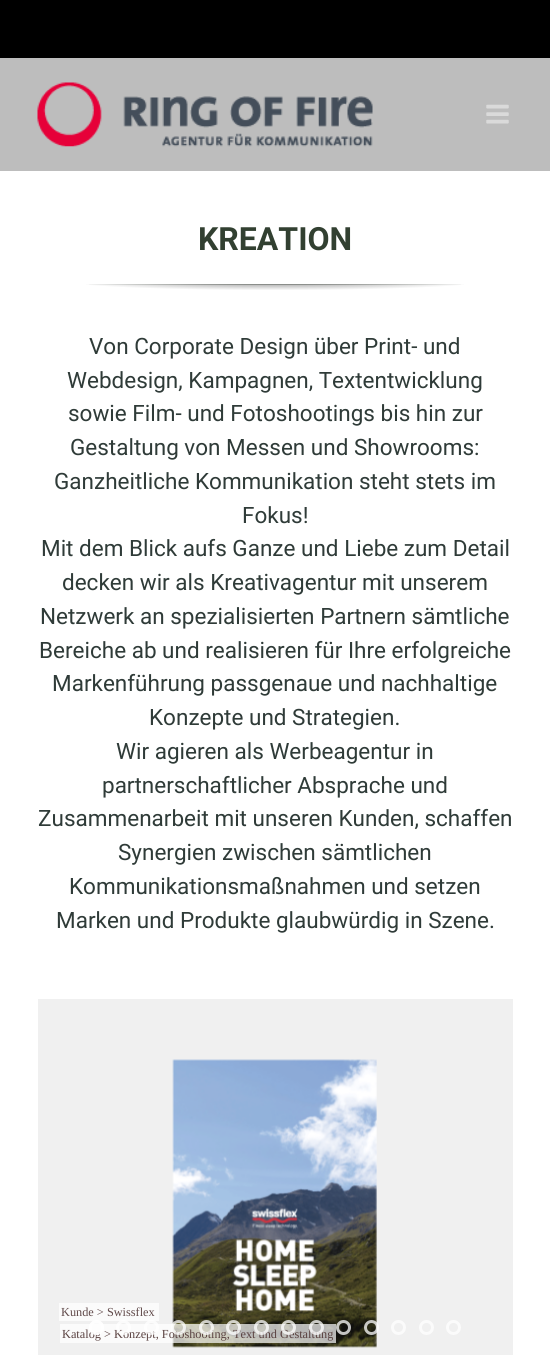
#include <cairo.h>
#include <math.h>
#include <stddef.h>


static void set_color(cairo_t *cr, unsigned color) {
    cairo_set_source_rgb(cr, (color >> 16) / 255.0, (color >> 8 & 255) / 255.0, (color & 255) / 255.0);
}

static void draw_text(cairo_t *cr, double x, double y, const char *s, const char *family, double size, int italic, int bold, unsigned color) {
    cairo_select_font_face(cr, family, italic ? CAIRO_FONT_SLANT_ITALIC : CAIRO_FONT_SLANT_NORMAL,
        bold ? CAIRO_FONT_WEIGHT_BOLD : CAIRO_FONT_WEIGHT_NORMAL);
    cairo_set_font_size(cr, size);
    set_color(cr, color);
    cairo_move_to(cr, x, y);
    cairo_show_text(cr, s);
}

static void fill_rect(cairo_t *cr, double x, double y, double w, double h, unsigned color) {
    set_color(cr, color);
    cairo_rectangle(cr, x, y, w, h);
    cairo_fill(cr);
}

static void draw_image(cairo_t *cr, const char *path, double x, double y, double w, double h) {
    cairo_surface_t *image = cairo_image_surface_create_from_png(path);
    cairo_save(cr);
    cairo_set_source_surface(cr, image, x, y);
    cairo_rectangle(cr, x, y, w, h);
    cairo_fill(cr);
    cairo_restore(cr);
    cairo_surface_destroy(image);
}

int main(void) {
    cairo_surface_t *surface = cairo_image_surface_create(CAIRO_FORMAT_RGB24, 550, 1355);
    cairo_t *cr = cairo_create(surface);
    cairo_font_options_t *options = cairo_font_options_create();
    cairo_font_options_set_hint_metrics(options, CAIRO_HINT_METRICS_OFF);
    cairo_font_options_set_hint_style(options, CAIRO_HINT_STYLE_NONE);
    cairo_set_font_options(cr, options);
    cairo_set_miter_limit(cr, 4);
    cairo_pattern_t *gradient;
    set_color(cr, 0x000000);
    cairo_paint(cr);
    fill_rect(cr, 0, 171, 550, 1184, 0xFFFFFF);
    fill_rect(cr, 0, 58, 550, 113, 0xBDBDBD);
    draw_image(cr, "assets/img1.png", 37, 82, 336, 65);
    draw_image(cr, "assets/img2.png", 486, 104, 23, 20);
    draw_text(cr, 198, 250, "KREATION", "Roboto", 32, 0, 1, 0x324031);
    gradient = cairo_pattern_create_radial(0, 0, 0, 0, 0, 1);
    cairo_pattern_set_matrix(gradient, &(cairo_matrix_t){1.0 / 336, 0, 0, 1.0 / 2.7, -1.0 * 275 / 336, -1.0 * 283 / 2.7});
    cairo_pattern_add_color_stop_rgba(gradient, 0, 0.196, 0.251, 0.192, 1);
    cairo_pattern_add_color_stop_rgba(gradient, 0.8, 1, 1, 1, 1);
    cairo_set_source(cr, gradient);
    cairo_pattern_destroy(gradient);
    cairo_rectangle(cr, 86, 284, 378, 1);
    cairo_fill(cr);
    gradient = cairo_pattern_create_radial(0, 0, 0, 0, 0, 1);
    cairo_pattern_set_matrix(gradient, &(cairo_matrix_t){1.0 / 336, 0, 0, 1.0 / 16, -1.0 * 275 / 336, -1.0 * 280 / 16});
    cairo_pattern_add_color_stop_rgba(gradient, 0, 0, 0, 0, 0.5);
    cairo_pattern_add_color_stop_rgba(gradient, 0.65, 0, 0, 0, 0);
    cairo_set_source(cr, gradient);
    cairo_pattern_destroy(gradient);
    cairo_rectangle(cr, 89, 284, 372, 6);
    cairo_fill(cr);
    draw_text(cr, 89, 354, "Von Corporate Design über Print- und", "Roboto", 22.5, 0, 0, 0x2F3B38);
    draw_text(cr, 67, 388, "Webdesign, Kampagnen, Textentwicklung", "Roboto", 22.5, 0, 0, 0x2F3B38);
    draw_text(cr, 68, 421, "sowie Film- und Fotoshootings bis hin zur", "Roboto", 22.5, 0, 0, 0x2F3B38);
    draw_text(cr, 70, 455, "Gestaltung von Messen und Showrooms:", "Roboto", 22.5, 0, 0, 0x2F3B38);
    draw_text(cr, 54, 489, "Ganzheitliche Kommunikation steht stets im", "Roboto", 22.5, 0, 0, 0x2F3B38);
    draw_text(cr, 242, 523, "Fokus!", "Roboto", 22.5, 0, 0, 0x2F3B38);
    draw_text(cr, 41, 556, "Mit dem Blick aufs Ganze und Liebe zum Detail", "Roboto", 22.5, 0, 0, 0x2F3B38);
    draw_text(cr, 62, 590, "decken wir als Kreativagentur mit unserem", "Roboto", 22.5, 0, 0, 0x2F3B38);
    draw_text(cr, 40, 624, "Netzwerk an spezialisierten Partnern sämtliche", "Roboto", 22.5, 0, 0, 0x2F3B38);
    draw_text(cr, 39, 658, "Bereiche ab und realisieren für Ihre erfolgreiche", "Roboto", 22.5, 0, 0, 0x2F3B38);
    draw_text(cr, 52, 691, "Markenführung passgenaue und nachhaltige", "Roboto", 22.5, 0, 0, 0x2F3B38);
    draw_text(cr, 149, 725, "Konzepte und Strategien.", "Roboto", 22.5, 0, 0, 0x2F3B38);
    draw_text(cr, 116, 759, "Wir agieren als Werbeagentur in", "Roboto", 22.5, 0, 0, 0x2F3B38);
    draw_text(cr, 102, 793, "partnerschaftlicher Absprache und", "Roboto", 22.5, 0, 0, 0x2F3B38);
    draw_text(cr, 38, 826, "Zusammenarbeit mit unseren Kunden, schaffen", "Roboto", 22.5, 0, 0, 0x2F3B38);
    draw_text(cr, 118, 860, "Synergien zwischen sämtlichen", "Roboto", 22.5, 0, 0, 0x2F3B38);
    draw_text(cr, 69, 894, "Kommunikationsmaßnahmen und setzen", "Roboto", 22.5, 0, 0, 0x2F3B38);
    draw_text(cr, 56, 928, "Marken und Produkte glaubwürdig in Szene.", "Roboto", 22.5, 0, 0, 0x2F3B38);
    fill_rect(cr, 38, 999, 475, 356, 0xF0F0F0);
    fill_rect(cr, 59, 1303, 100, 18, 0xFBFBFB);
    draw_text(cr, 61, 1316, "Kunde > Swissflex", "Liberation Serif", 12.3, 0, 0, 0x614A4A);
    draw_image(cr, "assets/img3.png", 172, 1059, 205, 289);
    cairo_set_source_rgba(cr, 1, 1, 1, 0.7);
    cairo_rectangle(cr, 60, 1324, 276, 19);
    cairo_fill(cr);
    draw_text(cr, 62, 1338, "Katalog > Konzept, Fotoshooting, Text und Gestaltung", "Liberation Serif", 12.3, 0, 0, 0x5A4241);
    cairo_set_source_rgba(cr, 1, 1, 1, 0.75);
    cairo_new_path(cr);
    cairo_arc(cr, 96.5, 1327.5, 7.5, 0, 2 * M_PI);
    cairo_fill(cr);
    cairo_arc(cr, 96.5, 1327.5, 6, 0, 2 * M_PI);
    cairo_set_line_width(cr, 3);
    cairo_stroke(cr);
    cairo_arc(cr, 123.5, 1327.5, 6, 0, 2 * M_PI);
    cairo_stroke(cr);
    cairo_arc(cr, 151.5, 1327.5, 6, 0, 2 * M_PI);
    cairo_stroke(cr);
    cairo_arc(cr, 178.5, 1327.5, 6, 0, 2 * M_PI);
    cairo_stroke(cr);
    cairo_arc(cr, 206.5, 1327.5, 6, 0, 2 * M_PI);
    cairo_stroke(cr);
    cairo_arc(cr, 233.5, 1327.5, 6, 0, 2 * M_PI);
    cairo_stroke(cr);
    cairo_arc(cr, 261.5, 1327.5, 6, 0, 2 * M_PI);
    cairo_stroke(cr);
    cairo_arc(cr, 288.5, 1327.5, 6, 0, 2 * M_PI);
    cairo_stroke(cr);
    cairo_arc(cr, 316.5, 1327.5, 6, 0, 2 * M_PI);
    cairo_stroke(cr);
    cairo_arc(cr, 343.5, 1327.5, 6, 0, 2 * M_PI);
    cairo_stroke(cr);
    cairo_arc(cr, 371.5, 1327.5, 6, 0, 2 * M_PI);
    cairo_stroke(cr);
    cairo_arc(cr, 398.5, 1327.5, 6, 0, 2 * M_PI);
    set_color(cr, 0xFBFBFB);
    cairo_stroke(cr);
    cairo_arc(cr, 426.5, 1327.5, 6, 0, 2 * M_PI);
    cairo_stroke(cr);
    cairo_arc(cr, 453.5, 1327.5, 6, 0, 2 * M_PI);
    cairo_stroke(cr);
    cairo_surface_write_to_png(surface, "output.png");
    cairo_font_options_destroy(options);
    cairo_destroy(cr);
    cairo_surface_destroy(surface);
    return 0;
}
